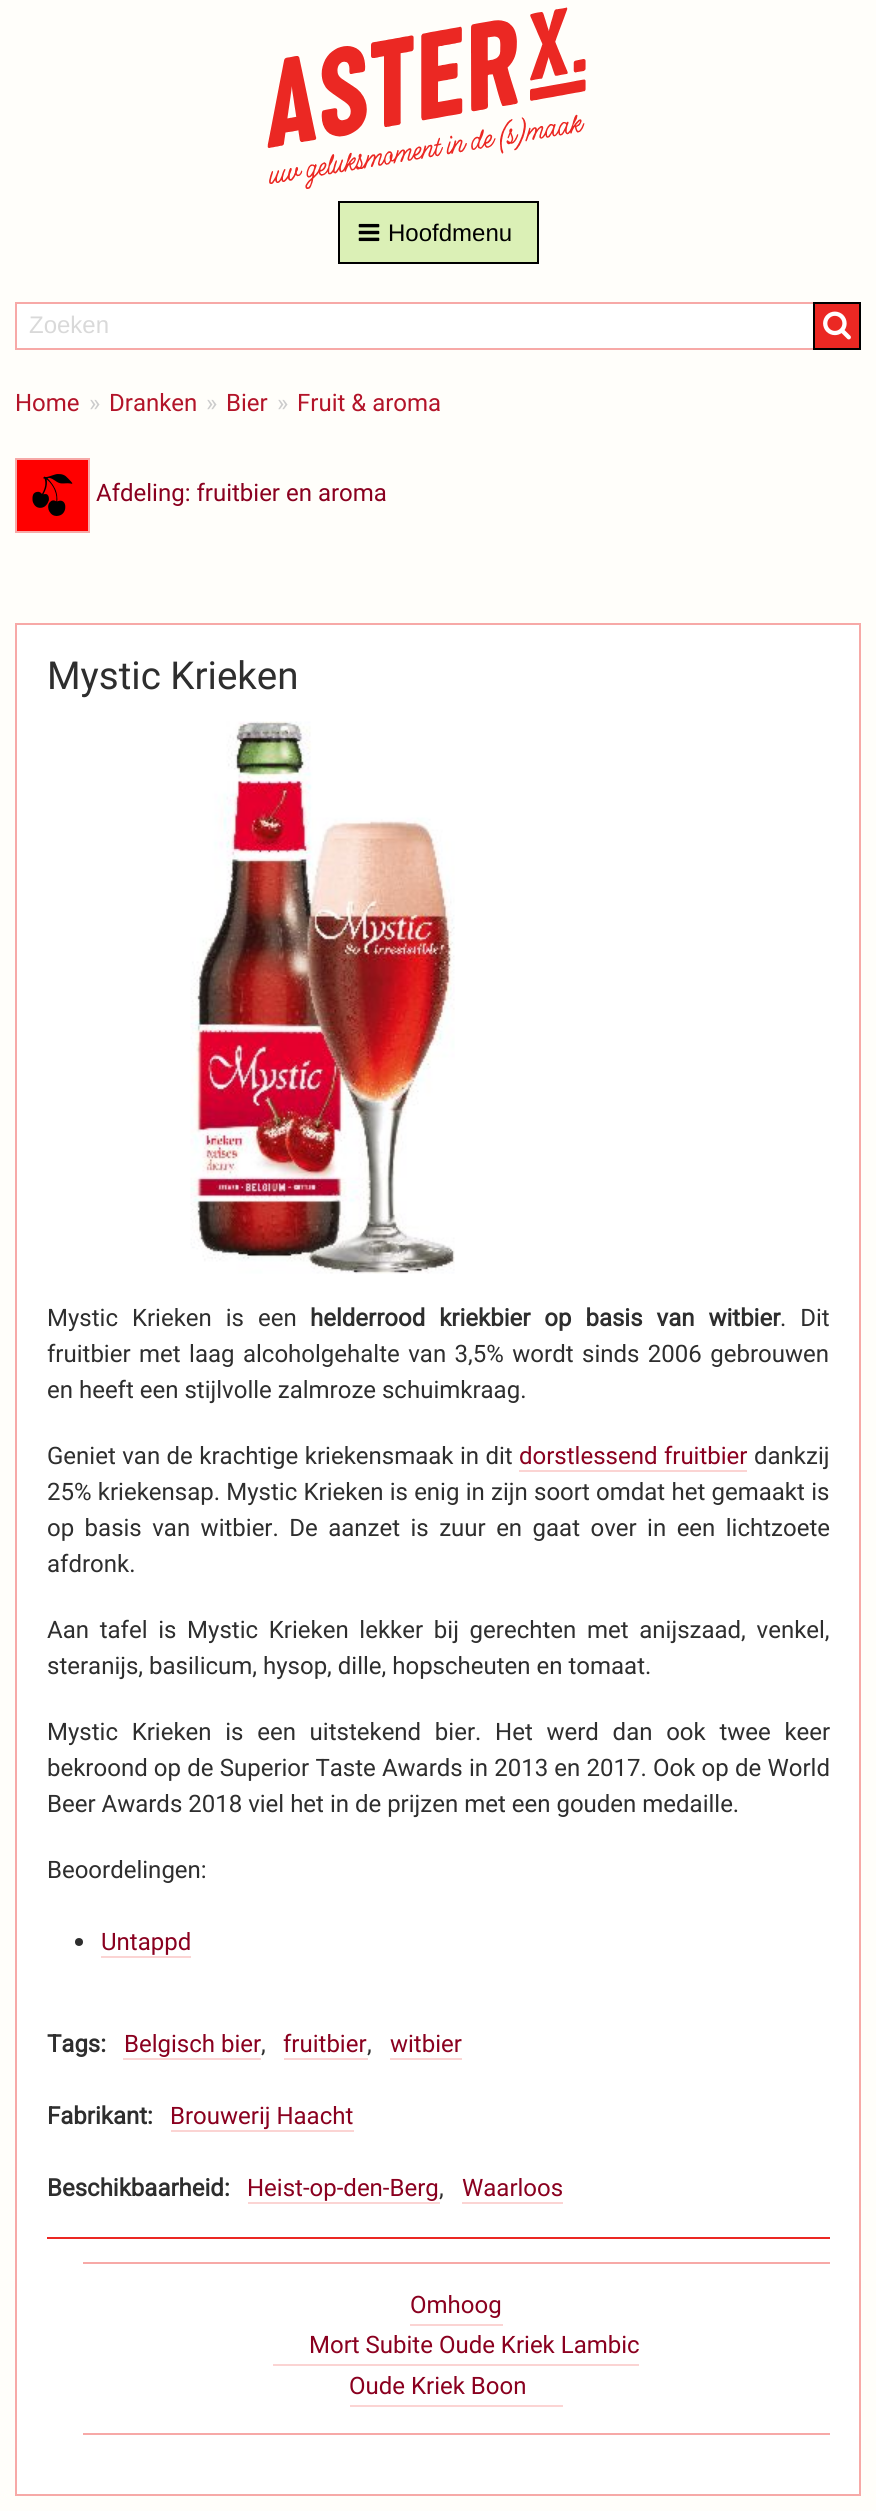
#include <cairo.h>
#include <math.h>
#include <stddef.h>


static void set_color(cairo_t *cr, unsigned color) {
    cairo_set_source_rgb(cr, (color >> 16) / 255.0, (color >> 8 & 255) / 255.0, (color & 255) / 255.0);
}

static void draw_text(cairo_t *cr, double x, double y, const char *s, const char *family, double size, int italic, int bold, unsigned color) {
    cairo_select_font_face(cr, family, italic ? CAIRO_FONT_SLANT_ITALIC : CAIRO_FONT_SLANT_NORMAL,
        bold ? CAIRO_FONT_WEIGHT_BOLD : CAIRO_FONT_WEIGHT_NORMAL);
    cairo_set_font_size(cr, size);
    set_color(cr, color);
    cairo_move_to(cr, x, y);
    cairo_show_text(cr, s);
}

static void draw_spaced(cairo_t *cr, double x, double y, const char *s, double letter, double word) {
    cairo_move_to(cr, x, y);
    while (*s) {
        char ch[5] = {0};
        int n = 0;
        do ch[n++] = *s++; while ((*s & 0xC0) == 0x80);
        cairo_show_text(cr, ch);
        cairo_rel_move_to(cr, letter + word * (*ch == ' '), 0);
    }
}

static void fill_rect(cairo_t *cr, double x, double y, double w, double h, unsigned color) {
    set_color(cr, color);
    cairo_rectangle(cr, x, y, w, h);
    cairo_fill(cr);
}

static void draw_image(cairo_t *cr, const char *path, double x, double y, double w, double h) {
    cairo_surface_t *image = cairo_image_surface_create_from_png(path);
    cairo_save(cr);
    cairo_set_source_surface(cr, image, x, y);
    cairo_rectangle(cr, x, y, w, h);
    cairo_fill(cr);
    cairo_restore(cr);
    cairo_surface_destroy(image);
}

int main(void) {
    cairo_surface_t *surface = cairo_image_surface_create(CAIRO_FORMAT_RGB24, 876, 2511);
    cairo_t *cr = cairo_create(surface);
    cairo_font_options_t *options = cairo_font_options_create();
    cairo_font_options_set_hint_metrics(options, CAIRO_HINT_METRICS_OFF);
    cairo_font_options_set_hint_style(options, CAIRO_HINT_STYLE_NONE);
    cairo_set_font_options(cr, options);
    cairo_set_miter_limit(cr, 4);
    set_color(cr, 0xFFFEFA);
    cairo_paint(cr);
    draw_image(cr, "assets/img1.png", 267, 7, 319, 182);
    set_color(cr, 0xDBF0B6);
    cairo_rectangle(cr, 339, 202, 199, 61);
    cairo_fill_preserve(cr);
    set_color(cr, 0x000000);
    cairo_stroke(cr);
    draw_image(cr, "assets/img2.png", 358, 223, 22, 19);
    draw_text(cr, 388, 241, "Hoofdmenu", "Liberation Sans", 24, 0, 0, 0x000000);
    fill_rect(cr, 17, 304, 796, 44, 0xFFFFFF);
    cairo_rectangle(cr, 16, 303, 844, 46);
    set_color(cr, 0xF7A9A7);
    cairo_stroke(cr);
    draw_text(cr, 29, 333, "Zoeken", "Liberation Sans", 24, 0, 0, 0xD9D9D9);
    fill_rect(cr, 815, 304, 44, 44, 0xEB2823);
    draw_image(cr, "assets/img3.png", 823, 311, 28, 29);
    cairo_rectangle(cr, 814, 303, 46, 46);
    set_color(cr, 0x000000);
    cairo_stroke(cr);
    draw_text(cr, 15, 411, "Home", "Roboto", 24, 0, 0, 0xB31429);
    draw_text(cr, 89, 411, "»", "Roboto", 24, 0, 0, 0xCCCCCC);
    draw_text(cr, 109, 411, "Dranken", "Roboto", 24, 0, 0, 0xB31429);
    draw_text(cr, 206, 411, "»", "Roboto", 24, 0, 0, 0xCCCCCC);
    draw_text(cr, 226, 411, "Bier", "Roboto", 24, 0, 0, 0xB31429);
    draw_text(cr, 277, 411, "»", "Roboto", 24, 0, 0, 0xCCCCCC);
    draw_text(cr, 297, 411, "Fruit & aroma", "Roboto", 24, 0, 0, 0xB31429);
    set_color(cr, 0xFF0000);
    cairo_rectangle(cr, 16, 459, 73, 73);
    cairo_fill_preserve(cr);
    set_color(cr, 0xF7A9A7);
    cairo_stroke(cr);
    draw_image(cr, "assets/img4.png", 32, 474, 41, 42);
    draw_text(cr, 96, 501, "Afdeling: fruitbier en aroma", "Roboto", 24, 0, 0, 0x8A001F);
    set_color(cr, 0xFFFFFF);
    cairo_rectangle(cr, 16, 624, 844, 1871);
    cairo_fill_preserve(cr);
    set_color(cr, 0xF7A9A7);
    cairo_stroke(cr);
    draw_text(cr, 47, 689, "Mystic Krieken", "Roboto", 38.5, 0, 0, 0x2E2E2E);
    draw_image(cr, "assets/img5.png", 190, 721, 265, 553);
    cairo_set_font_size(cr, 24);
    draw_spaced(cr, 47, 1326, "Mystic Krieken is een", 0, 8);
    cairo_select_font_face(cr, "Roboto", CAIRO_FONT_SLANT_NORMAL, CAIRO_FONT_WEIGHT_BOLD);
    draw_spaced(cr, 310, 1326, "helderrood kriekbier op basis van witbier", 0, 8);
    cairo_select_font_face(cr, "Roboto", CAIRO_FONT_SLANT_NORMAL, CAIRO_FONT_WEIGHT_NORMAL);
    draw_spaced(cr, 780, 1326, ". Dit", 0, 8);
    draw_spaced(cr, 47, 1362, "fruitbier met laag alcoholgehalte van 3,5% wordt sinds 2006 gebrouwen", 0, 2.5);
    draw_text(cr, 47, 1398, "en heeft een stijlvolle zalmroze schuimkraag.", "Roboto", 24, 0, 0, 0x2E2E2E);
    draw_spaced(cr, 47, 1464, "Geniet van de krachtige kriekensmaak in dit", 0, 0.5);
    set_color(cr, 0x8A001F);
    draw_spaced(cr, 519, 1464, "dorstlessend fruitbier", 0, 0.5);
    fill_rect(cr, 519, 1470, 228, 2, 0xFBD4D3);
    draw_text(cr, 754, 1464, "dankzij", "Roboto", 24, 0, 0, 0x2E2E2E);
    draw_spaced(cr, 47, 1500, "25% kriekensap. Mystic Krieken is enig in zijn soort omdat het gemaakt is", 0, 0.3);
    draw_spaced(cr, 47, 1536, "op basis van witbier. De aanzet is zuur en gaat over in een lichtzoete", 0, 4.5);
    draw_text(cr, 47, 1572, "afdronk.", "Roboto", 24, 0, 0, 0x2E2E2E);
    draw_spaced(cr, 47, 1638, "Aan tafel is Mystic Krieken lekker bij gerechten met anijszaad, venkel,", 0, 4.75);
    draw_text(cr, 47, 1674, "steranijs, basilicum, hysop, dille, hopscheuten en tomaat.", "Roboto", 24, 0, 0, 0x2E2E2E);
    draw_spaced(cr, 47, 1740, "Mystic Krieken is een uitstekend bier. Het werd dan ook twee keer", 0, 7.75);
    draw_spaced(cr, 47, 1776, "bekroond op de Superior Taste Awards in 2013 en 2017. Ook op de World", 0, 0.25);
    draw_text(cr, 47, 1812, "Beer Awards 2018 viel het in de prijzen met een gouden medaille.", "Roboto", 24, 0, 0, 0x2E2E2E);
    draw_text(cr, 47, 1878, "Beoordelingen:", "Roboto", 24, 0, 0, 0x2E2E2E);
    cairo_new_path(cr);
    cairo_arc(cr, 79, 1942, 4, 0, 2 * M_PI);
    cairo_fill(cr);
    draw_text(cr, 101, 1950, "Untappd", "Roboto", 24, 0, 0, 0x8A001F);
    fill_rect(cr, 101, 1956, 90, 2, 0xFBD4D3);
    draw_text(cr, 47, 2052, "Tags:", "Roboto", 24, 0, 1, 0x2E2E2E);
    draw_text(cr, 124, 2052, "Belgisch bier", "Roboto", 24, 0, 0, 0x8A001F);
    fill_rect(cr, 123, 2058, 138, 2, 0xFBD4D3);
    draw_text(cr, 261, 2052, ",", "Roboto", 24, 0, 0, 0x2E2E2E);
    draw_text(cr, 283, 2052, "fruitbier", "Roboto", 24, 0, 0, 0x8A001F);
    fill_rect(cr, 284, 2058, 84, 2, 0xFBD4D3);
    draw_text(cr, 367, 2052, ",", "Roboto", 24, 0, 0, 0x2E2E2E);
    draw_text(cr, 390, 2052, "witbier", "Roboto", 24, 0, 0, 0x8A001F);
    fill_rect(cr, 390, 2058, 72, 2, 0xFBD4D3);
    draw_text(cr, 47, 2124, "Fabrikant:", "Roboto", 24, 0, 1, 0x2E2E2E);
    draw_text(cr, 170, 2124, "Brouwerij Haacht", "Roboto", 24, 0, 0, 0x8A001F);
    fill_rect(cr, 171, 2130, 183, 2, 0xFBD4D3);
    draw_text(cr, 47, 2196, "Beschikbaarheid:", "Roboto", 24, 0, 1, 0x2E2E2E);
    draw_text(cr, 247, 2196, "Heist-op-den-Berg", "Roboto", 24, 0, 0, 0x8A001F);
    fill_rect(cr, 248, 2202, 192, 2, 0xFBD4D3);
    draw_text(cr, 439, 2196, ",", "Roboto", 24, 0, 0, 0x2E2E2E);
    draw_text(cr, 462, 2196, "Waarloos", "Roboto", 24, 0, 0, 0x8A001F);
    fill_rect(cr, 462, 2202, 101, 2, 0xFBD4D3);
    fill_rect(cr, 47, 2237, 783, 2, 0xEB2823);
    fill_rect(cr, 83, 2262, 747, 2, 0xF7A9A7);
    fill_rect(cr, 83, 2433, 747, 2, 0xF7A9A7);
    fill_rect(cr, 410, 2324, 93, 2, 0xFBD4D3);
    draw_text(cr, 410, 2313, "Omhoog", "Roboto", 24, 0, 0, 0x8A001F);
    fill_rect(cr, 273, 2364, 366, 2, 0xFBD4D3);
    draw_text(cr, 309, 2353, "Mort Subite Oude Kriek Lambic", "Roboto", 24, 0, 0, 0x8A001F);
    fill_rect(cr, 350, 2405, 213, 2, 0xFBD4D3);
    draw_text(cr, 349, 2394, "Oude Kriek Boon", "Roboto", 24, 0, 0, 0x8A001F);
    cairo_surface_write_to_png(surface, "output.png");
    cairo_font_options_destroy(options);
    cairo_destroy(cr);
    cairo_surface_destroy(surface);
    return 0;
}
